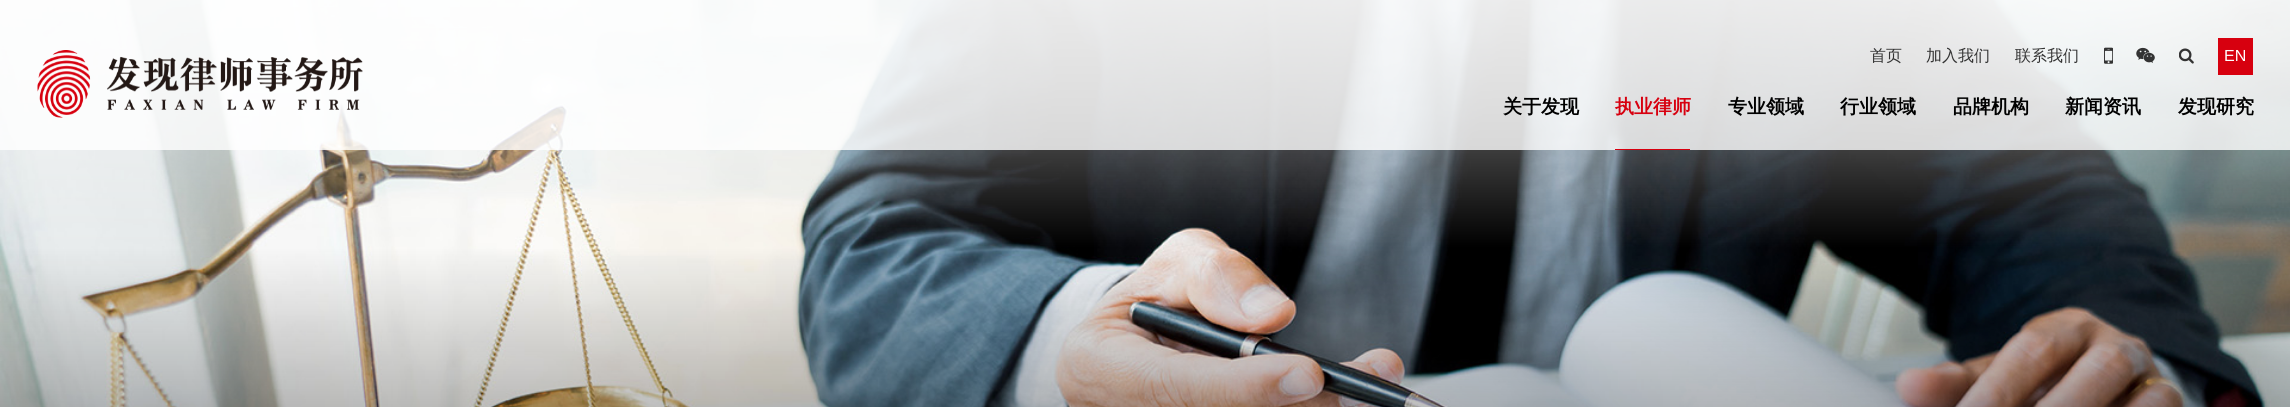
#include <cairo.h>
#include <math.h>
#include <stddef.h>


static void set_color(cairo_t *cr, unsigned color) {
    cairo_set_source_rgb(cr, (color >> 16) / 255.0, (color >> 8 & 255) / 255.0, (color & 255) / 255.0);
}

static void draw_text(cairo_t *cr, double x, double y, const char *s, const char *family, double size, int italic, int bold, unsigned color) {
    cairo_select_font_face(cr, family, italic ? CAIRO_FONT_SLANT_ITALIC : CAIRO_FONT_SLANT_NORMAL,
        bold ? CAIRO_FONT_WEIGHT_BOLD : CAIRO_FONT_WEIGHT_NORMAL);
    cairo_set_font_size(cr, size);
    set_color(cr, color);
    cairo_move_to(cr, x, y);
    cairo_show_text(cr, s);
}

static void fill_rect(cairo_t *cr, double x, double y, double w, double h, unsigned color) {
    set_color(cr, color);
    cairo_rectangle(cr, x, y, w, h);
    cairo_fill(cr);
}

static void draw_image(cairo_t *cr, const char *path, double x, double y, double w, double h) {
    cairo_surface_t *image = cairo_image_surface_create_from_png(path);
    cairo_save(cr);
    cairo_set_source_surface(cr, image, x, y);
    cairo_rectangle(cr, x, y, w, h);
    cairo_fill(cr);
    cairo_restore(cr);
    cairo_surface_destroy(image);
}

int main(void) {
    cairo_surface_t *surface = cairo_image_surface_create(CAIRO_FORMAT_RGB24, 2290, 407);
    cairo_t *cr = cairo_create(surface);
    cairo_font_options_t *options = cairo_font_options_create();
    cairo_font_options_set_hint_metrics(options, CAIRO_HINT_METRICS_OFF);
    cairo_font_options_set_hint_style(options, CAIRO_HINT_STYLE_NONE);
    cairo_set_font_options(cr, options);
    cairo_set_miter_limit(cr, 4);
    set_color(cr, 0xFFFFFF);
    cairo_paint(cr);
    draw_image(cr, "assets/img1.png", 0, 0, 2290, 407);
    cairo_set_source_rgba(cr, 1, 1, 1, 0.8);
    cairo_rectangle(cr, 0, 0, 2290, 150);
    cairo_fill(cr);
    draw_image(cr, "assets/img2.png", 37, 50, 326, 68);
    draw_text(cr, 1870, 61, "首页", "WenQuanYi Zen Hei Medium", 16, 0, 0, 0x333333);
    draw_text(cr, 1926, 61, "加入我们", "WenQuanYi Zen Hei Medium", 16, 0, 0, 0x333333);
    draw_text(cr, 2015, 61, "联系我们", "WenQuanYi Zen Hei Medium", 16, 0, 0, 0x333333);
    draw_image(cr, "assets/img3.png", 2104, 47, 9, 17);
    draw_image(cr, "assets/img4.png", 2136, 47, 19, 16);
    draw_image(cr, "assets/img5.png", 2179, 48, 15, 16);
    fill_rect(cr, 2218, 38, 35, 37, 0xD7000F);
    draw_text(cr, 2224, 61, "EN", "Liberation Sans", 16, 0, 0, 0xFFFFFF);
    draw_text(cr, 1503, 113, "关于发现", "WenQuanYi Zen Hei", 19, 0, 1, 0x000000);
    draw_text(cr, 1615, 113, "执业律师", "WenQuanYi Zen Hei", 19, 0, 1, 0xD7000F);
    fill_rect(cr, 1615, 149, 75, 1, 0xD7000F);
    draw_text(cr, 1728, 113, "专业领域", "WenQuanYi Zen Hei", 19, 0, 1, 0x000000);
    draw_text(cr, 1840, 113, "行业领域", "WenQuanYi Zen Hei", 19, 0, 1, 0x000000);
    draw_text(cr, 1953, 113, "品牌机构", "WenQuanYi Zen Hei", 19, 0, 1, 0x000000);
    draw_text(cr, 2065, 113, "新闻资讯", "WenQuanYi Zen Hei", 19, 0, 1, 0x000000);
    draw_text(cr, 2178, 113, "发现研究", "WenQuanYi Zen Hei", 19, 0, 1, 0x000000);
    cairo_surface_write_to_png(surface, "output.png");
    cairo_font_options_destroy(options);
    cairo_destroy(cr);
    cairo_surface_destroy(surface);
    return 0;
}
